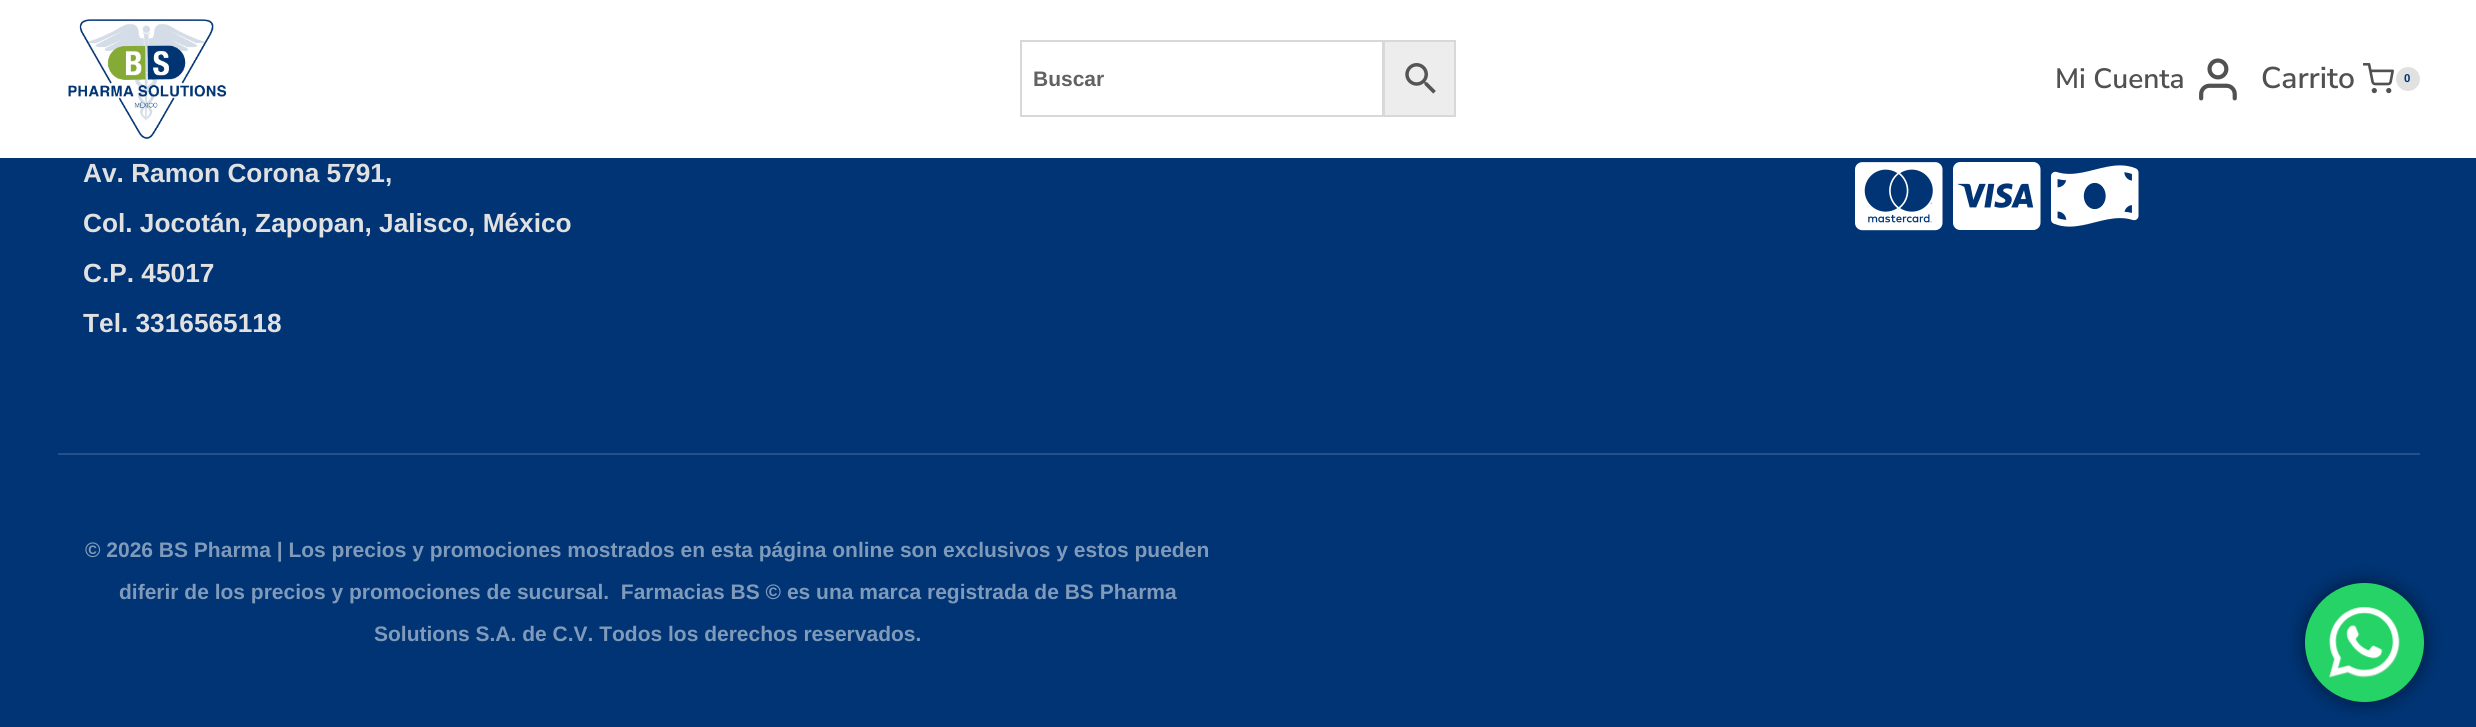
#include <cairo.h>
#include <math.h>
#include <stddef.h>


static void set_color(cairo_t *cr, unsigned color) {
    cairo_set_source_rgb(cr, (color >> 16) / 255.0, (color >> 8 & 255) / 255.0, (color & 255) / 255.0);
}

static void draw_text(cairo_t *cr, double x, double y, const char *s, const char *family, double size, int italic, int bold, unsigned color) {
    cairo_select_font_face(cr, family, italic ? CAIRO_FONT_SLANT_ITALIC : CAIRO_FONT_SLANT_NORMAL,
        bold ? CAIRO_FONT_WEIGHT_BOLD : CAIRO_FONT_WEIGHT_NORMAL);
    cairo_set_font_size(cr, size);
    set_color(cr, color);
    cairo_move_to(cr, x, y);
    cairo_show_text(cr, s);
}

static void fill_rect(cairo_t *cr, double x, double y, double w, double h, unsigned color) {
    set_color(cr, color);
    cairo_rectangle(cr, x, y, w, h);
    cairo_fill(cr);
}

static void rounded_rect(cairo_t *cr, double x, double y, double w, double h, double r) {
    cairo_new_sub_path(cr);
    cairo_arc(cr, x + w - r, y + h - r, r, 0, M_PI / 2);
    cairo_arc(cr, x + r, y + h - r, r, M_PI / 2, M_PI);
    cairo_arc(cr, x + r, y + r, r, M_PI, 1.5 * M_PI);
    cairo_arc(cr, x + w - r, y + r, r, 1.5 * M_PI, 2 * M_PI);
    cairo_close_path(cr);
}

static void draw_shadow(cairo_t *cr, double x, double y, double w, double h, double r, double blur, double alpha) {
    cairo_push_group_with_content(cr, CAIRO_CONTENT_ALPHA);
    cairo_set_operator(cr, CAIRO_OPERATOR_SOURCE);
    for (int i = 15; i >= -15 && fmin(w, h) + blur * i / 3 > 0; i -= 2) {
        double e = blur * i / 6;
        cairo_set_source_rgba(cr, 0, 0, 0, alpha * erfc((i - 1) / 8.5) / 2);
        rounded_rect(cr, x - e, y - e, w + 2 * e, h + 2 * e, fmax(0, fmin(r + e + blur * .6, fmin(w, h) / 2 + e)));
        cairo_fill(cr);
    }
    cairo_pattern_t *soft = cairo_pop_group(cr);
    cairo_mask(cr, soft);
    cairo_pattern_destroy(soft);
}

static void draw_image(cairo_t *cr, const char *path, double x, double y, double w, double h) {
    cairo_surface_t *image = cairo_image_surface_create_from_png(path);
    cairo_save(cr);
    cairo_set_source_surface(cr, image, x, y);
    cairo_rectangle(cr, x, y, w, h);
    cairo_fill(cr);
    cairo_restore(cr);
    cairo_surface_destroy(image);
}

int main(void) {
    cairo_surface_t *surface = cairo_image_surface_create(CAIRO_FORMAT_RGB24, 2476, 727);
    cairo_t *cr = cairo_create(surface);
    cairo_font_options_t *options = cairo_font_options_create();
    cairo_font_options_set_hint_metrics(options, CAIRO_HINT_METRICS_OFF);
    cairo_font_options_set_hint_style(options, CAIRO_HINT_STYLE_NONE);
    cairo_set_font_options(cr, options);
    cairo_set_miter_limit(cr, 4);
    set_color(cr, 0x003474);
    cairo_paint(cr);
    fill_rect(cr, 0, 0, 2476, 158, 0xFFFFFF);
    draw_image(cr, "assets/img1.png", 68, 19, 159, 120);
    set_color(cr, 0xEDEDED);
    cairo_rectangle(cr, 1384, 41, 71, 75);
    cairo_fill_preserve(cr);
    set_color(cr, 0xD8D8D8);
    cairo_stroke(cr);
    cairo_rectangle(cr, 1021, 41, 362, 75);
    cairo_stroke(cr);
    draw_text(cr, 1033, 86, "Buscar", "Liberation Sans", 21, 0, 1, 0x626262);
    draw_image(cr, "assets/img2.png", 1405, 63, 31, 31);
    draw_text(cr, 2055, 88, "Mi Cuenta", "Nunito Sans SemiBold", 28, 0, 0, 0x515151);
    draw_image(cr, "assets/img3.png", 2199, 58, 38, 43);
    draw_text(cr, 2261, 88, "Carrito", "Nunito Sans SemiBold", 30, 0, 0, 0x515151);
    draw_image(cr, "assets/img4.png", 2363, 63, 31, 31);
    set_color(cr, 0xE1E1E1);
    cairo_arc(cr, 2408, 79, 12, 0, 2 * M_PI);
    cairo_fill(cr);
    draw_text(cr, 2404, 82, "0", "Roboto", 11, 0, 1, 0x003473);
    draw_text(cr, 83, 182, "Av. Ramon Corona 5791,", "Liberation Sans", 26.25, 0, 1, 0xE1E1E1);
    draw_text(cr, 83, 232, "Col. Jocotán, Zapopan, Jalisco, México", "Liberation Sans", 26.25, 0, 1, 0xE1E1E1);
    draw_text(cr, 83, 282, "C.P. 45017", "Liberation Sans", 26.25, 0, 1, 0xE1E1E1);
    draw_text(cr, 83, 332, "Tel. 3316565118", "Liberation Sans", 26.25, 0, 1, 0xE1E1E1);
    draw_image(cr, "assets/img5.png", 1855, 162, 88, 69);
    draw_image(cr, "assets/img6.png", 1953, 162, 88, 68);
    draw_image(cr, "assets/img7.png", 2051, 165, 88, 62);
    fill_rect(cr, 58, 453, 2362, 2, 0x245188);
    draw_text(cr, 85, 557, "© 2026 BS Pharma | Los precios y promociones mostrados en esta página online son exclusivos y estos pueden", "Liberation Sans", 21, 0, 1, 0x809ABA);
    draw_text(cr, 119, 599, "diferir de los precios y promociones de sucursal.  Farmacias BS © es una marca registrada de BS Pharma", "Liberation Sans", 21, 0, 1, 0x809ABA);
    draw_text(cr, 374, 641, "Solutions S.A. de C.V. Todos los derechos reservados.", "Liberation Sans", 21, 0, 1, 0x809ABA);
    set_color(cr, 0x000000);
    draw_shadow(cr, 2305, 583, 119, 119, 59.5, 9.5, 0.5);
    set_color(cr, 0x25D366);
    cairo_arc(cr, 2364.5, 642.5, 59.5, 0, 2 * M_PI);
    cairo_fill(cr);
    draw_image(cr, "assets/img8.png", 2329, 607, 71, 71);
    cairo_surface_write_to_png(surface, "output.png");
    cairo_font_options_destroy(options);
    cairo_destroy(cr);
    cairo_surface_destroy(surface);
    return 0;
}
